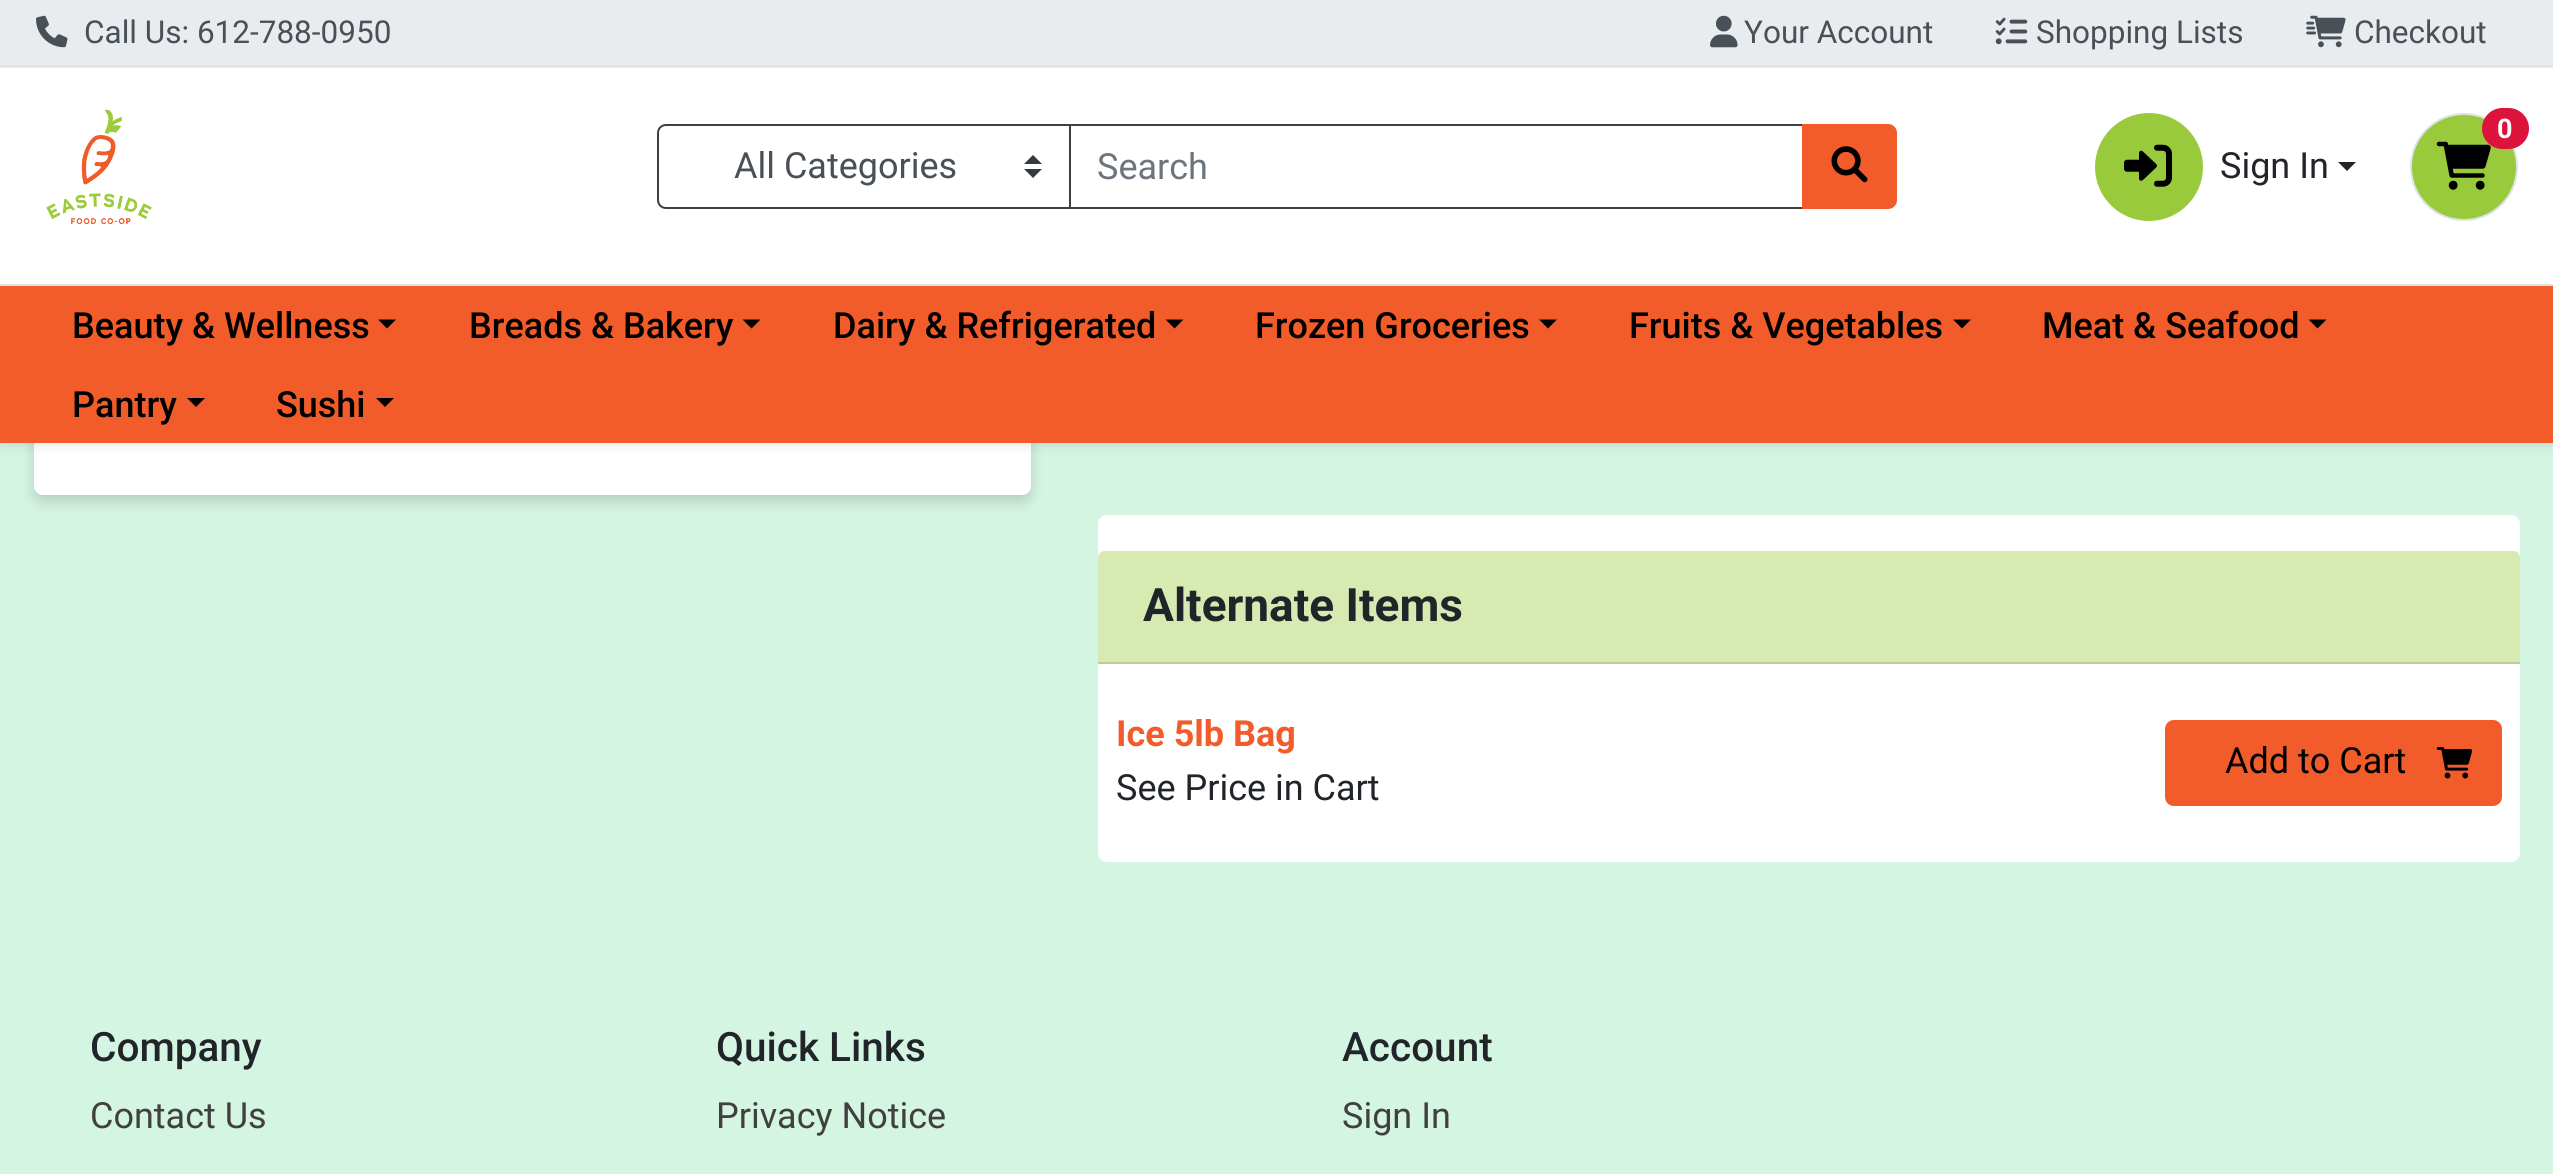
#include <cairo.h>
#include <math.h>
#include <stddef.h>


static void set_color(cairo_t *cr, unsigned color) {
    cairo_set_source_rgb(cr, (color >> 16) / 255.0, (color >> 8 & 255) / 255.0, (color & 255) / 255.0);
}

static void draw_text(cairo_t *cr, double x, double y, const char *s, const char *family, double size, int italic, int bold, unsigned color) {
    cairo_select_font_face(cr, family, italic ? CAIRO_FONT_SLANT_ITALIC : CAIRO_FONT_SLANT_NORMAL,
        bold ? CAIRO_FONT_WEIGHT_BOLD : CAIRO_FONT_WEIGHT_NORMAL);
    cairo_set_font_size(cr, size);
    set_color(cr, color);
    cairo_move_to(cr, x, y);
    cairo_show_text(cr, s);
}

static void fill_rect(cairo_t *cr, double x, double y, double w, double h, unsigned color) {
    set_color(cr, color);
    cairo_rectangle(cr, x, y, w, h);
    cairo_fill(cr);
}

static void rounded_rect(cairo_t *cr, double x, double y, double w, double h, double r) {
    cairo_new_sub_path(cr);
    cairo_arc(cr, x + w - r, y + h - r, r, 0, M_PI / 2);
    cairo_arc(cr, x + r, y + h - r, r, M_PI / 2, M_PI);
    cairo_arc(cr, x + r, y + r, r, M_PI, 1.5 * M_PI);
    cairo_arc(cr, x + w - r, y + r, r, 1.5 * M_PI, 2 * M_PI);
    cairo_close_path(cr);
}

static void draw_shadow(cairo_t *cr, double x, double y, double w, double h, double r, double blur, double alpha) {
    cairo_push_group_with_content(cr, CAIRO_CONTENT_ALPHA);
    cairo_set_operator(cr, CAIRO_OPERATOR_SOURCE);
    for (int i = 15; i >= -15 && fmin(w, h) + blur * i / 3 > 0; i -= 2) {
        double e = blur * i / 6;
        cairo_set_source_rgba(cr, 0, 0, 0, alpha * erfc((i - 1) / 8.5) / 2);
        rounded_rect(cr, x - e, y - e, w + 2 * e, h + 2 * e, fmax(0, fmin(r + e + blur * .6, fmin(w, h) / 2 + e)));
        cairo_fill(cr);
    }
    cairo_pattern_t *soft = cairo_pop_group(cr);
    cairo_mask(cr, soft);
    cairo_pattern_destroy(soft);
}

static void draw_image(cairo_t *cr, const char *path, double x, double y, double w, double h) {
    cairo_surface_t *image = cairo_image_surface_create_from_png(path);
    cairo_save(cr);
    cairo_set_source_surface(cr, image, x, y);
    cairo_rectangle(cr, x, y, w, h);
    cairo_fill(cr);
    cairo_restore(cr);
    cairo_surface_destroy(image);
}

int main(void) {
    cairo_surface_t *surface = cairo_image_surface_create(CAIRO_FORMAT_RGB24, 2553, 1174);
    cairo_t *cr = cairo_create(surface);
    cairo_font_options_t *options = cairo_font_options_create();
    cairo_font_options_set_hint_metrics(options, CAIRO_HINT_METRICS_OFF);
    cairo_font_options_set_hint_style(options, CAIRO_HINT_STYLE_NONE);
    cairo_set_font_options(cr, options);
    cairo_set_miter_limit(cr, 4);
    set_color(cr, 0xD5F5E3);
    cairo_paint(cr);
    set_color(cr, 0x000000);
    draw_shadow(cr, 34, -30, 997, 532, 9, 7, 0.16);
    set_color(cr, 0xFFFFFF);
    rounded_rect(cr, 34, -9, 997, 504, 9);
    cairo_fill(cr);
    set_color(cr, 0x000000);
    draw_shadow(cr, 0, 5, 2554, 443, 0, 4.5, 0.07);
    fill_rect(cr, 0, 68, 2553, 216, 0xFFFFFF);
    fill_rect(cr, 0, 0, 2553, 68, 0xE9ECEF);
    fill_rect(cr, 0, 65, 2553, 2, 0xDEE2E6);
    draw_image(cr, "assets/img1.png", 36, 15, 32, 33);
    draw_text(cr, 84, 43, "Call Us: 612-788-0950", "Roboto", 31.5, 0, 0, 0x495057);
    draw_image(cr, "assets/img2.png", 1710, 15, 28, 33);
    draw_text(cr, 1744, 43, "Your Account", "Roboto", 31.5, 0, 0, 0x495057);
    draw_image(cr, "assets/img3.png", 1995, 17, 33, 28);
    draw_text(cr, 2036, 43, "Shopping Lists", "Roboto", 31.5, 0, 0, 0x495057);
    draw_image(cr, "assets/img4.png", 2306, 15, 40, 33);
    draw_text(cr, 2354, 43, "Checkout", "Roboto", 31.5, 0, 0, 0x495057);
    fill_rect(cr, 0, 284, 2553, 2, 0xDEE2E6);
    draw_image(cr, "assets/img5.png", 46, 109, 106, 115);
    cairo_rectangle(cr, 1070, 125, 734, 83);
    set_color(cr, 0x404040);
    cairo_stroke(cr);
    set_color(cr, 0xFFFFFF);
    cairo_new_path(cr);
    cairo_move_to(cr, 666, 124);
    cairo_line_to(cr, 1071, 124);
    cairo_line_to(cr, 1071, 209);
    cairo_line_to(cr, 666, 209);
    cairo_curve_to(cr, 661, 209, 657, 205, 657, 200);
    cairo_line_to(cr, 657, 133);
    cairo_curve_to(cr, 657, 128, 661, 124, 666, 124);
    cairo_close_path(cr);
    cairo_fill(cr);
    set_color(cr, 0x343A40);
    cairo_new_path(cr);
    cairo_move_to(cr, 1033, 155);
    cairo_line_to(cr, 1024, 164);
    cairo_line_to(cr, 1042, 164);
    cairo_close_path(cr);
    cairo_move_to(cr, 1033, 178);
    cairo_line_to(cr, 1024, 169);
    cairo_line_to(cr, 1042, 169);
    cairo_close_path(cr);
    cairo_fill(cr);
    cairo_new_path(cr);
    cairo_move_to(cr, 666, 125);
    cairo_line_to(cr, 1070, 125);
    cairo_line_to(cr, 1070, 208);
    cairo_line_to(cr, 666, 208);
    cairo_curve_to(cr, 661.5, 208, 658, 204.5, 658, 200);
    cairo_line_to(cr, 658, 133);
    cairo_curve_to(cr, 658, 128.5, 661.5, 125, 666, 125);
    cairo_close_path(cr);
    set_color(cr, 0x404040);
    cairo_stroke(cr);
    draw_text(cr, 734, 178, "All Categories", "Roboto", 36, 0, 0, 0x495057);
    draw_text(cr, 1097, 179, "Search", "Roboto", 36, 0, 0, 0x6C757D);
    set_color(cr, 0xF15C2A);
    cairo_new_path(cr);
    cairo_move_to(cr, 1803, 125);
    cairo_line_to(cr, 1888, 125);
    cairo_curve_to(cr, 1892.5, 125, 1896, 128.5, 1896, 133);
    cairo_line_to(cr, 1896, 200);
    cairo_curve_to(cr, 1896, 204.5, 1892.5, 208, 1888, 208);
    cairo_line_to(cr, 1803, 208);
    cairo_close_path(cr);
    cairo_fill_preserve(cr);
    cairo_stroke(cr);
    draw_image(cr, "assets/img6.png", 1831, 146, 37, 37);
    set_color(cr, 0x99CA3C);
    cairo_arc(cr, 2464, 167, 53, 0, 2 * M_PI);
    cairo_fill_preserve(cr);
    set_color(cr, 0xDEE2E6);
    cairo_stroke(cr);
    draw_image(cr, "assets/img7.png", 2436, 141, 55, 49);
    set_color(cr, 0xDC143C);
    rounded_rect(cr, 2482, 108, 47, 41, 20.5);
    cairo_fill(cr);
    draw_text(cr, 2497, 138, "0", "Roboto", 27, 0, 1, 0xFFFFFF);
    set_color(cr, 0x99CA3C);
    cairo_new_path(cr);
    cairo_arc(cr, 2149, 167, 54, 0, 2 * M_PI);
    cairo_fill(cr);
    draw_image(cr, "assets/img8.png", 2124, 144, 48, 43);
    draw_text(cr, 2220, 178, "Sign In", "Roboto", 36, 0, 0, 0x212529);
    cairo_new_path(cr);
    cairo_move_to(cr, 2338, 162);
    cairo_line_to(cr, 2356, 162);
    cairo_line_to(cr, 2347, 171);
    cairo_close_path(cr);
    cairo_fill(cr);
    fill_rect(cr, 0, 286, 2553, 157, 0xF15C2A);
    draw_text(cr, 72, 338, "Beauty & Wellness", "Roboto Medium", 36, 0, 0, 0x000000);
    cairo_new_path(cr);
    cairo_move_to(cr, 378, 319.5);
    cairo_line_to(cr, 396, 319.5);
    cairo_line_to(cr, 387, 328.5);
    cairo_close_path(cr);
    cairo_fill(cr);
    draw_text(cr, 469, 338, "Breads & Bakery", "Roboto Medium", 36, 0, 0, 0x000000);
    cairo_new_path(cr);
    cairo_move_to(cr, 742.5, 319.5);
    cairo_line_to(cr, 760.5, 319.5);
    cairo_line_to(cr, 751.5, 328.5);
    cairo_close_path(cr);
    cairo_fill(cr);
    draw_text(cr, 833, 338, "Dairy & Refrigerated", "Roboto Medium", 36, 0, 0, 0x000000);
    cairo_new_path(cr);
    cairo_move_to(cr, 1165.5, 319.5);
    cairo_line_to(cr, 1183.5, 319.5);
    cairo_line_to(cr, 1174.5, 328.5);
    cairo_close_path(cr);
    cairo_fill(cr);
    draw_text(cr, 1255, 338, "Frozen Groceries", "Roboto Medium", 36, 0, 0, 0x000000);
    cairo_new_path(cr);
    cairo_move_to(cr, 1539, 319.5);
    cairo_line_to(cr, 1557, 319.5);
    cairo_line_to(cr, 1548, 328.5);
    cairo_close_path(cr);
    cairo_fill(cr);
    draw_text(cr, 1629, 338, "Fruits & Vegetables", "Roboto Medium", 36, 0, 0, 0x000000);
    cairo_new_path(cr);
    cairo_move_to(cr, 1953, 319.5);
    cairo_line_to(cr, 1971, 319.5);
    cairo_line_to(cr, 1962, 328.5);
    cairo_close_path(cr);
    cairo_fill(cr);
    draw_text(cr, 2042, 338, "Meat & Seafood", "Roboto Medium", 36, 0, 0, 0x000000);
    cairo_new_path(cr);
    cairo_move_to(cr, 2308.5, 319.5);
    cairo_line_to(cr, 2326.5, 319.5);
    cairo_line_to(cr, 2317.5, 328.5);
    cairo_close_path(cr);
    cairo_fill(cr);
    draw_text(cr, 72, 417, "Pantry", "Roboto Medium", 36, 0, 0, 0x000000);
    cairo_new_path(cr);
    cairo_move_to(cr, 187, 398);
    cairo_line_to(cr, 205, 398);
    cairo_line_to(cr, 196, 407);
    cairo_close_path(cr);
    cairo_fill(cr);
    draw_text(cr, 276, 417, "Sushi", "Roboto Medium", 36, 0, 0, 0x000000);
    cairo_new_path(cr);
    cairo_move_to(cr, 376, 398);
    cairo_line_to(cr, 394, 398);
    cairo_line_to(cr, 385, 407);
    cairo_close_path(cr);
    cairo_fill(cr);
    set_color(cr, 0xFFFFFF);
    rounded_rect(cr, 1098, 515, 1422, 347, 9);
    cairo_fill(cr);
    set_color(cr, 0xD6EAB1);
    cairo_new_path(cr);
    cairo_move_to(cr, 1105, 551);
    cairo_line_to(cr, 2513, 551);
    cairo_curve_to(cr, 2517, 551, 2520, 554, 2520, 558);
    cairo_line_to(cr, 2520, 664);
    cairo_line_to(cr, 1098, 664);
    cairo_line_to(cr, 1098, 558);
    cairo_curve_to(cr, 1098, 554, 1101, 551, 1105, 551);
    cairo_close_path(cr);
    cairo_fill(cr);
    fill_rect(cr, 1098, 662, 1422, 2, 0xBBCD9B);
    draw_text(cr, 1143, 621, "Alternate Items", "Roboto", 46, 0, 1, 0x212529);
    draw_text(cr, 1116, 746, "Ice 5lb Bag", "Roboto", 36, 0, 1, 0xF15C2A);
    draw_text(cr, 1116, 800, "See Price in Cart", "Roboto", 36, 0, 0, 0x212529);
    set_color(cr, 0xF15C2A);
    rounded_rect(cr, 2166, 721, 335, 84, 8);
    cairo_fill_preserve(cr);
    cairo_stroke(cr);
    draw_text(cr, 2225, 773, "Add to Cart", "Roboto", 36, 0, 0, 0x000000);
    draw_image(cr, "assets/img9.png", 2436, 747, 37, 32);
    draw_text(cr, 90, 1061, "Company", "Roboto Medium", 40.5, 0, 0, 0x212529);
    draw_text(cr, 90, 1128, "Contact Us", "Roboto", 36, 0, 0, 0x404040);
    draw_text(cr, 716, 1061, "Quick Links", "Roboto Medium", 40.5, 0, 0, 0x212529);
    draw_text(cr, 716, 1128, "Privacy Notice", "Roboto", 36, 0, 0, 0x404040);
    draw_text(cr, 1342, 1061, "Account", "Roboto Medium", 40.5, 0, 0, 0x212529);
    draw_text(cr, 1342, 1128, "Sign In", "Roboto", 36, 0, 0, 0x404040);
    cairo_surface_write_to_png(surface, "output.png");
    cairo_font_options_destroy(options);
    cairo_destroy(cr);
    cairo_surface_destroy(surface);
    return 0;
}
